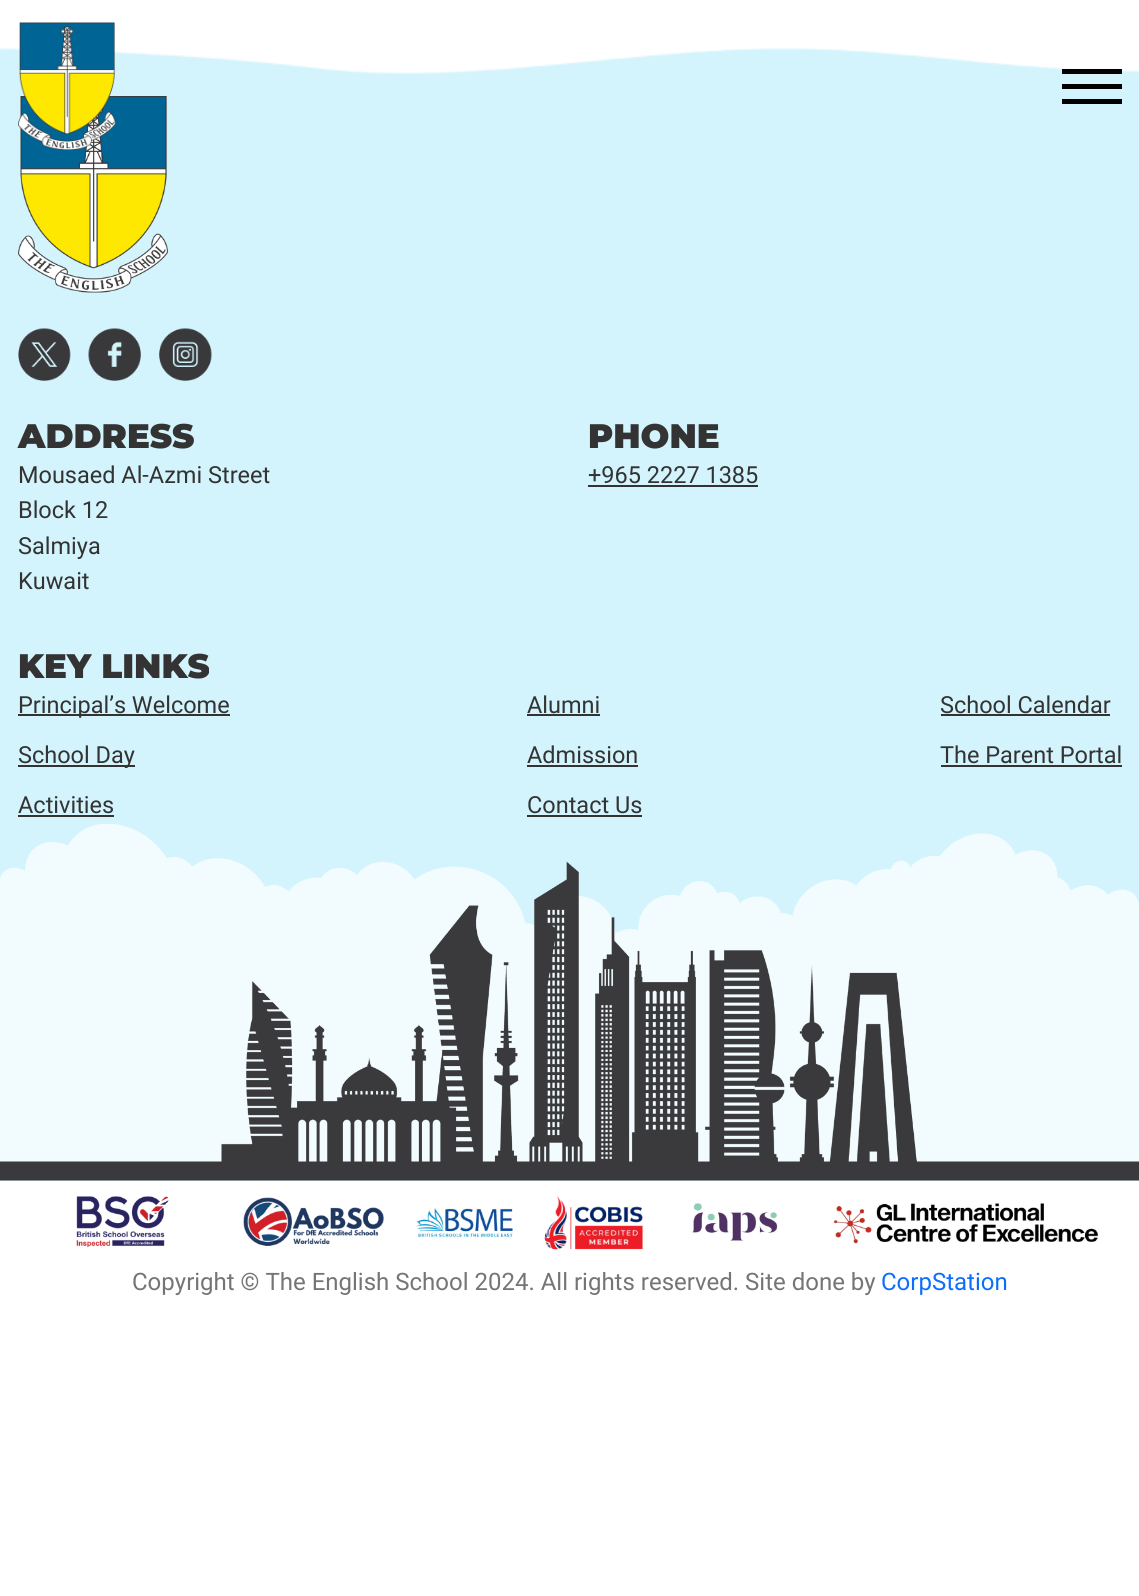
#include <cairo.h>
#include <math.h>
#include <stddef.h>


static void set_color(cairo_t *cr, unsigned color) {
    cairo_set_source_rgb(cr, (color >> 16) / 255.0, (color >> 8 & 255) / 255.0, (color & 255) / 255.0);
}

static void draw_text(cairo_t *cr, double x, double y, const char *s, const char *family, double size, int italic, int bold, unsigned color) {
    cairo_select_font_face(cr, family, italic ? CAIRO_FONT_SLANT_ITALIC : CAIRO_FONT_SLANT_NORMAL,
        bold ? CAIRO_FONT_WEIGHT_BOLD : CAIRO_FONT_WEIGHT_NORMAL);
    cairo_set_font_size(cr, size);
    set_color(cr, color);
    cairo_move_to(cr, x, y);
    cairo_show_text(cr, s);
}

static void fill_rect(cairo_t *cr, double x, double y, double w, double h, unsigned color) {
    set_color(cr, color);
    cairo_rectangle(cr, x, y, w, h);
    cairo_fill(cr);
}

static void draw_image(cairo_t *cr, const char *path, double x, double y, double w, double h) {
    cairo_surface_t *image = cairo_image_surface_create_from_png(path);
    cairo_save(cr);
    cairo_set_source_surface(cr, image, x, y);
    cairo_rectangle(cr, x, y, w, h);
    cairo_fill(cr);
    cairo_restore(cr);
    cairo_surface_destroy(image);
}

int main(void) {
    cairo_surface_t *surface = cairo_image_surface_create(CAIRO_FORMAT_RGB24, 1139, 1596);
    cairo_t *cr = cairo_create(surface);
    cairo_font_options_t *options = cairo_font_options_create();
    cairo_font_options_set_hint_metrics(options, CAIRO_HINT_METRICS_OFF);
    cairo_font_options_set_hint_style(options, CAIRO_HINT_STYLE_NONE);
    cairo_set_font_options(cr, options);
    cairo_set_miter_limit(cr, 4);
    set_color(cr, 0xFFFFFF);
    cairo_paint(cr);
    draw_image(cr, "assets/img2.png", 0, 48, 1139, 48);
    fill_rect(cr, 0, 96, 1139, 1085, 0xD3F4FC);
    draw_image(cr, "assets/img3.png", 18, 96, 150, 197);
    draw_image(cr, "assets/img1.png", 18, 22, 98, 128);
    fill_rect(cr, 1062, 69, 60, 5, 0x000000);
    fill_rect(cr, 1062, 84, 60, 5, 0x000000);
    fill_rect(cr, 1062, 99, 60, 5, 0x000000);
    draw_image(cr, "assets/img4.png", 18, 328, 53, 53);
    draw_image(cr, "assets/img5.png", 88, 328, 53, 53);
    draw_image(cr, "assets/img6.png", 159, 328, 53, 53);
    draw_text(cr, 18, 448, "ADDRESS", "Montserrat Black", 34, 0, 0, 0x333333);
    draw_text(cr, 18, 483, "Mousaed Al-Azmi Street", "Roboto", 23.5, 0, 0, 0x333333);
    draw_text(cr, 18, 518, "Block 12", "Roboto", 23.5, 0, 0, 0x333333);
    draw_text(cr, 18, 554, "Salmiya", "Roboto", 23.5, 0, 0, 0x333333);
    draw_text(cr, 18, 589, "Kuwait", "Roboto", 23.5, 0, 0, 0x333333);
    draw_text(cr, 588, 448, "PHONE", "Montserrat Black", 34, 0, 0, 0x333333);
    draw_text(cr, 588, 483, "+965 2227 1385", "Roboto", 23.5, 0, 0, 0x333333);
    fill_rect(cr, 588, 485, 170, 2, 0x333333);
    draw_text(cr, 18, 678, "KEY LINKS", "Montserrat Black", 34, 0, 0, 0x333333);
    fill_rect(cr, 18, 714, 212, 2, 0x333333);
    draw_text(cr, 18, 713, "Principal’s Welcome", "Roboto", 23.5, 0, 0, 0x333333);
    fill_rect(cr, 18, 765, 117, 2, 0x333333);
    draw_text(cr, 18, 763, "School Day", "Roboto", 23.5, 0, 0, 0x333333);
    draw_text(cr, 18, 813, "Activities", "Roboto", 23.5, 0, 0, 0x333333);
    fill_rect(cr, 18, 815, 96, 2, 0x333333);
    draw_text(cr, 527, 713, "Alumni", "Roboto", 23.5, 0, 0, 0x333333);
    fill_rect(cr, 527, 714, 73, 2, 0x333333);
    draw_text(cr, 527, 763, "Admission", "Roboto", 23.5, 0, 0, 0x333333);
    fill_rect(cr, 527, 765, 111, 2, 0x333333);
    draw_text(cr, 527, 813, "Contact Us", "Roboto", 23.5, 0, 0, 0x333333);
    fill_rect(cr, 527, 815, 115, 2, 0x333333);
    draw_text(cr, 940, 713, "School Calendar", "Roboto", 23.5, 0, 0, 0x333333);
    fill_rect(cr, 941, 714, 169, 2, 0x333333);
    draw_text(cr, 940, 763, "The Parent Portal", "Roboto", 23.5, 0, 0, 0x333333);
    fill_rect(cr, 941, 765, 181, 2, 0x333333);
    draw_image(cr, "assets/img7.png", 0, 824, 1139, 357);
    draw_image(cr, "assets/img8.png", 76, 1196, 93, 52);
    draw_image(cr, "assets/img9.png", 243, 1197, 141, 49);
    draw_image(cr, "assets/img10.png", 416, 1208, 97, 30);
    draw_image(cr, "assets/img11.png", 544, 1196, 100, 54);
    draw_image(cr, "assets/img12.png", 692, 1203, 86, 38);
    draw_image(cr, "assets/img13.png", 833, 1203, 266, 41);
    draw_text(cr, 132, 1290, "Copyright © The English School 2024. All rights reserved. Site done by", "Roboto", 24, 0, 0, 0x757575);
    draw_text(cr, 881, 1290, "CorpStation", "Roboto", 24, 0, 0, 0x0D6EFD);
    cairo_surface_write_to_png(surface, "output.png");
    cairo_font_options_destroy(options);
    cairo_destroy(cr);
    cairo_surface_destroy(surface);
    return 0;
}
